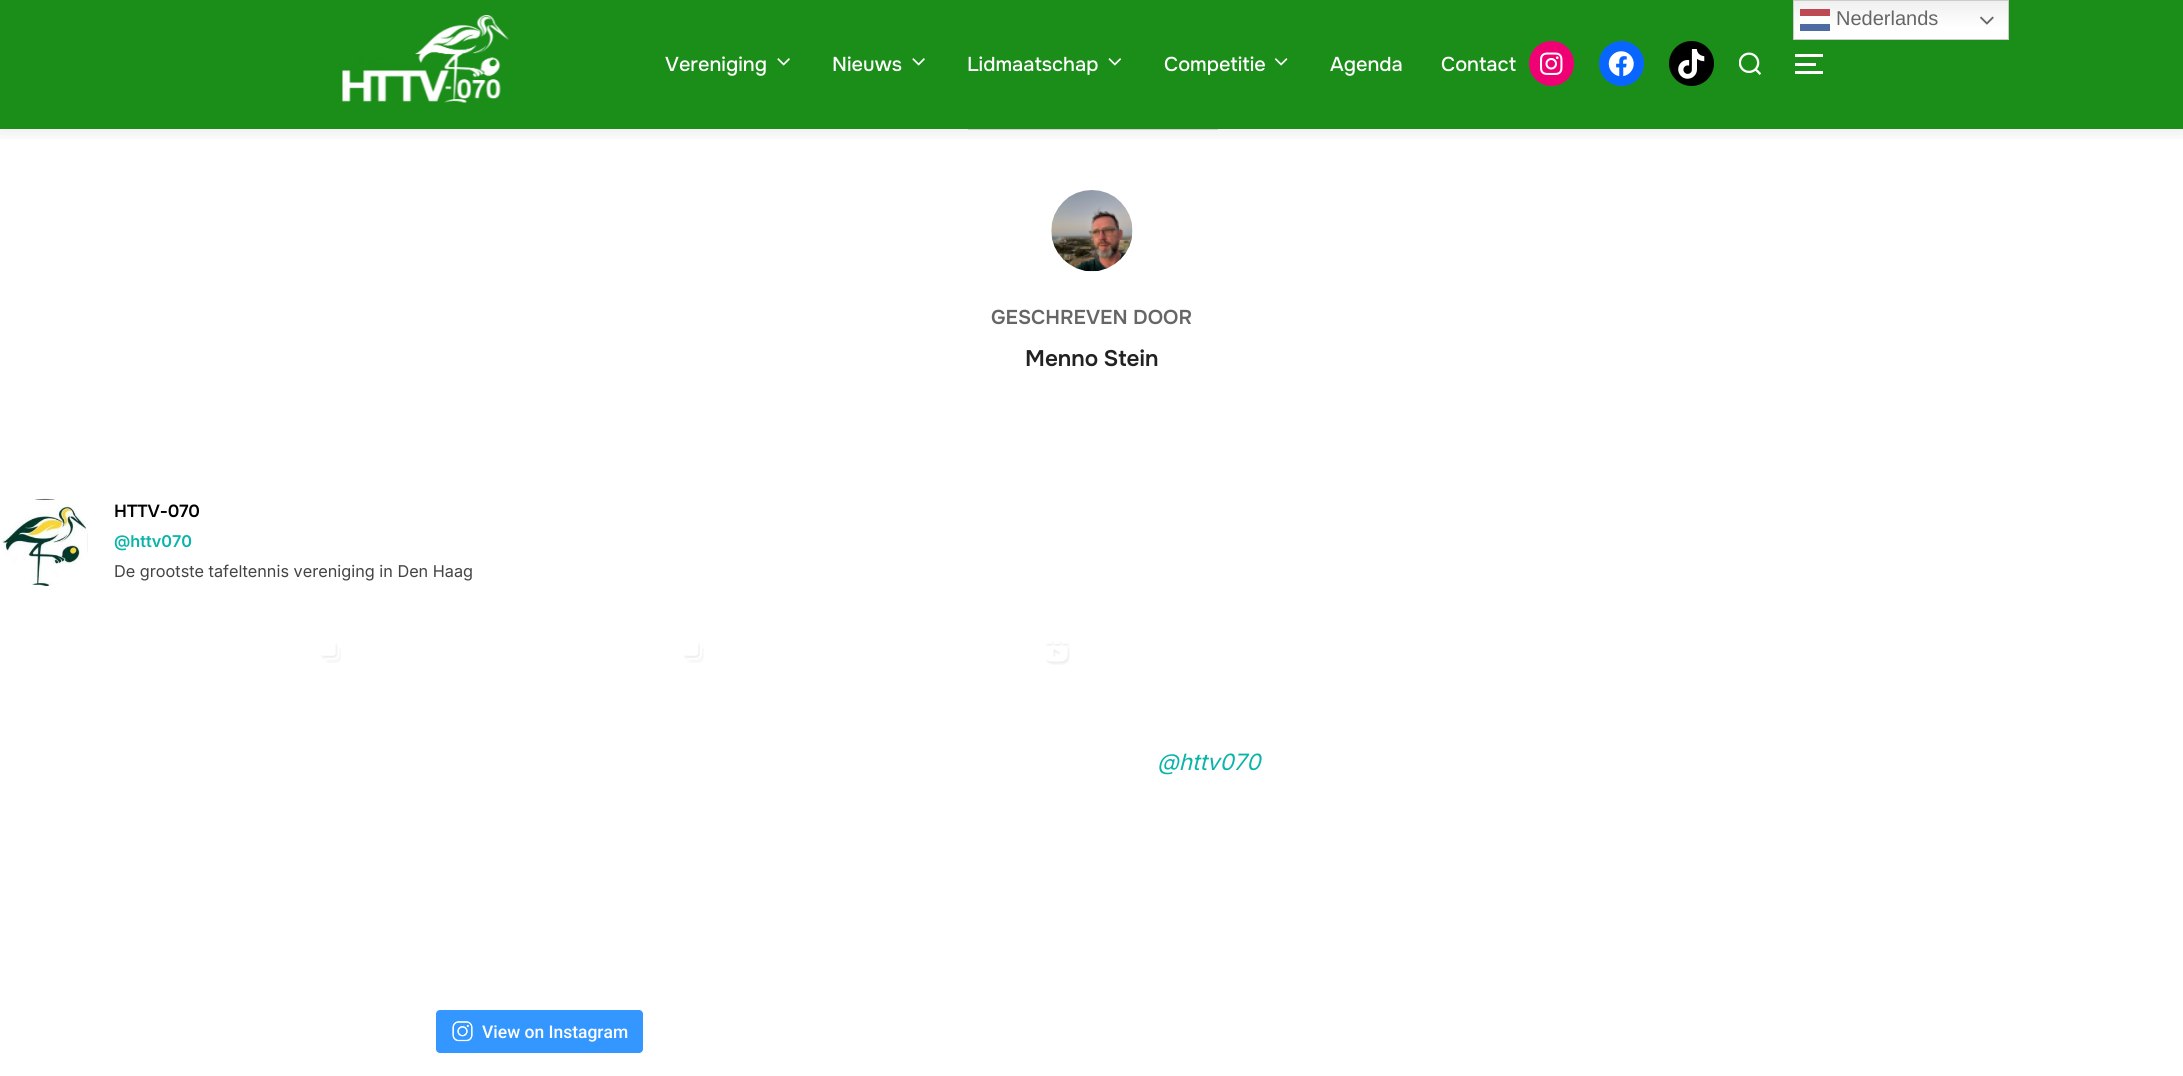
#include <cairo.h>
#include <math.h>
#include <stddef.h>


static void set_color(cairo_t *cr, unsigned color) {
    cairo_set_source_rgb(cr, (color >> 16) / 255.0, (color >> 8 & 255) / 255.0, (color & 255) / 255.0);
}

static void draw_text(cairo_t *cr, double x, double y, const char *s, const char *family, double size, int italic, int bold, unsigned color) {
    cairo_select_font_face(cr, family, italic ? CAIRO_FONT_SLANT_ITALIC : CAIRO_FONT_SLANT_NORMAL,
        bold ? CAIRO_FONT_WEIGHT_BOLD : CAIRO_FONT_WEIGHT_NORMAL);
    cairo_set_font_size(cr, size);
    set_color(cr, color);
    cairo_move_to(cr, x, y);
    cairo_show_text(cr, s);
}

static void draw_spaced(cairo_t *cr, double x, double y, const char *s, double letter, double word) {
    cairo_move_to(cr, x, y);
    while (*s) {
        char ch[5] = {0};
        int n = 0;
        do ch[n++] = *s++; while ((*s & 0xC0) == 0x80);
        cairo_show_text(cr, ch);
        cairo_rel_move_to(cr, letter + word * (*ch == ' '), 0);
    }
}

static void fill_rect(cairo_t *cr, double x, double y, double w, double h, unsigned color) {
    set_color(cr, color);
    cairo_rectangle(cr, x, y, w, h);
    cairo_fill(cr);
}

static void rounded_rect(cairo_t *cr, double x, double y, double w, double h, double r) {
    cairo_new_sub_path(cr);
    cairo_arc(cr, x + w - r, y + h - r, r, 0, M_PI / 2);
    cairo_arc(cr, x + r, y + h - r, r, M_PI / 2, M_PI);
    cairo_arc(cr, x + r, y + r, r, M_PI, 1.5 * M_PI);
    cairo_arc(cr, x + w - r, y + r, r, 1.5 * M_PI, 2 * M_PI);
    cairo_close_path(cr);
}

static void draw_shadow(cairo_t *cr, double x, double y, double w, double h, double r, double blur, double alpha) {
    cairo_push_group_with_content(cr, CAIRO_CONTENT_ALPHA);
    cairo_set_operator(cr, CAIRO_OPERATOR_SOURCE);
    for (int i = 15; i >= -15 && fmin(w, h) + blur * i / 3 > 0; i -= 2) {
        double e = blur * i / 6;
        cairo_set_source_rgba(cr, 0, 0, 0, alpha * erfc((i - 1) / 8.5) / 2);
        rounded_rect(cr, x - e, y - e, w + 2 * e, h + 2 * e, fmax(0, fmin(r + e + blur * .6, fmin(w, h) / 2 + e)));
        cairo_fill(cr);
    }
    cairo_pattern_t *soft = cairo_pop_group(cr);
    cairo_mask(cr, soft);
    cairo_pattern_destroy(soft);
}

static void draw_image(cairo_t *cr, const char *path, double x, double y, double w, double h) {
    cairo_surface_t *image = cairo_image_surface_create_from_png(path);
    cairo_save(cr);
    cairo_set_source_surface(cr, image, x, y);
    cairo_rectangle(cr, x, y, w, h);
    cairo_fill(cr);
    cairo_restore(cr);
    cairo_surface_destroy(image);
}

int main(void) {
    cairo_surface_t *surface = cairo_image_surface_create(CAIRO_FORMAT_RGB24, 2183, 1076);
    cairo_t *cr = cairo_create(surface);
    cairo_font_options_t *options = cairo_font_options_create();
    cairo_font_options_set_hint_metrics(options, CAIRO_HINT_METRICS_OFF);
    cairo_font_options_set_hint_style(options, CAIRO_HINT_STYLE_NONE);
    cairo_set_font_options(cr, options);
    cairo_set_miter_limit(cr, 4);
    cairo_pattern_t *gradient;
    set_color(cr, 0xFFFFFF);
    cairo_paint(cr);
    fill_rect(cr, 968, 129, 250, 1, 0xDBDBDB);
    cairo_save(cr);
    cairo_rectangle(cr, 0, 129, 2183, 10);
    cairo_clip(cr);
    set_color(cr, 0x000000);
    draw_shadow(cr, -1, -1, 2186, 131, 0, 11, 0.1);
    cairo_restore(cr);
    cairo_set_source_rgba(cr, 0.008, 0.51, 0, 0.9);
    cairo_rectangle(cr, 0, 0, 2183, 129);
    cairo_fill(cr);
    gradient = cairo_pattern_create_linear(1901, 0, 1901, 40);
    cairo_pattern_add_color_stop_rgba(gradient, 0, 0.937, 0.937, 0.937, 1);
    cairo_pattern_add_color_stop_rgba(gradient, 0.7, 1, 1, 1, 1);
    cairo_set_source(cr, gradient);
    cairo_pattern_destroy(gradient);
    cairo_rectangle(cr, 1794, 1, 214, 38);
    cairo_fill(cr);
    cairo_rectangle(cr, 1793.5, 0.5, 215, 39);
    set_color(cr, 0xCCCCCC);
    cairo_set_line_width(cr, 1);
    cairo_stroke(cr);
    fill_rect(cr, 1800, 9, 30, 7, 0xBE4953);
    draw_text(cr, 1836, 25, "Nederlands", "Liberation Sans", 20, 0, 0, 0x666666);
    cairo_set_source_rgba(cr, 1, 1, 1, 0.8);
    cairo_rectangle(cr, 1800, 16, 30, 6);
    cairo_fill(cr);
    draw_image(cr, "assets/img1.png", 1980, 16, 14, 9);
    fill_rect(cr, 1800, 24, 30, 7, 0x4D6BA2);
    draw_image(cr, "assets/img2.png", 342, 15, 167, 88);
    draw_text(cr, 665, 71, "Vereniging", "Onest Medium", 20, 0, 0, 0xFFFFFF);
    draw_image(cr, "assets/img3.png", 777, 58, 13, 8);
    draw_text(cr, 832, 71, "Nieuws", "Onest Medium", 20, 0, 0, 0xFFFFFF);
    draw_image(cr, "assets/img3.png", 912, 58, 13, 8);
    draw_text(cr, 967, 71, "Lidmaatschap", "Onest Medium", 20, 0, 0, 0xFFFFFF);
    draw_image(cr, "assets/img4.png", 1108, 58, 14, 8);
    draw_text(cr, 1164, 71, "Competitie", "Onest Medium", 20, 0, 0, 0xFFFFFF);
    draw_image(cr, "assets/img5.png", 1274, 58, 14, 8);
    draw_text(cr, 1330, 71, "Agenda", "Onest Medium", 20, 0, 0, 0xFFFFFF);
    draw_text(cr, 1441, 71, "Contact", "Onest Medium", 20, 0, 0, 0xFFFFFF);
    set_color(cr, 0xF00075);
    cairo_new_path(cr);
    cairo_arc(cr, 1551.5, 63.5, 22.5, 0, 2 * M_PI);
    cairo_fill(cr);
    draw_image(cr, "assets/img6.png", 1540, 52, 23, 23);
    set_color(cr, 0x0866FF);
    cairo_arc(cr, 1621.5, 63.5, 22.5, 0, 2 * M_PI);
    cairo_fill(cr);
    draw_image(cr, "assets/img7.png", 1608, 51, 26, 26);
    set_color(cr, 0x000000);
    cairo_arc(cr, 1691.5, 63.5, 22.5, 0, 2 * M_PI);
    cairo_fill(cr);
    draw_image(cr, "assets/img8.png", 1678, 49, 27, 30);
    draw_image(cr, "assets/img9.png", 1739, 52, 22, 23);
    fill_rect(cr, 1795, 54, 28, 3, 0xFFFFFF);
    fill_rect(cr, 1795, 63, 21, 3, 0xFFFFFF);
    fill_rect(cr, 1795, 71, 28, 3, 0xFFFFFF);
    draw_image(cr, "assets/img10.png", 1051, 190, 82, 82);
    draw_text(cr, 991, 324, "GESCHREVEN DOOR", "Onest SemiBold", 20, 0, 0, 0x666666);
    cairo_set_font_size(cr, 22.5);
    set_color(cr, 0x222222);
    draw_spaced(cr, 1025, 366, "Menno Stein", 0, -1);
    draw_image(cr, "assets/img11.png", 1, 498, 87, 89);
    draw_text(cr, 114, 517, "HTTV-070", "Onest SemiBold", 17.5, 0, 0, 0x000000);
    draw_text(cr, 114, 547, "@httv070", "Inter SemiBold", 16.25, 0, 0, 0x0BB4AA);
    draw_text(cr, 114, 577, "De grootste tafeltennis vereniging in Den Haag", "Inter", 16.25, 0, 0, 0x444444);
    draw_image(cr, "assets/img12.png", 321, 643, 20, 20);
    draw_image(cr, "assets/img13.png", 684, 643, 20, 20);
    draw_image(cr, "assets/img14.png", 1046, 641, 24, 24);
    set_color(cr, 0x3496FF);
    rounded_rect(cr, 436, 1010, 207, 43, 4);
    cairo_fill(cr);
    draw_image(cr, "assets/img15.png", 452, 1021, 21, 21);
    draw_text(cr, 482, 1038, "View on Instagram", "Roboto Medium", 17.5, 0, 0, 0xFFFFFF);
    draw_text(cr, 1157, 770, "@httv070", "Inter", 22.5, 1, 0, 0x0BB4AA);
    cairo_surface_write_to_png(surface, "output.png");
    cairo_font_options_destroy(options);
    cairo_destroy(cr);
    cairo_surface_destroy(surface);
    return 0;
}
